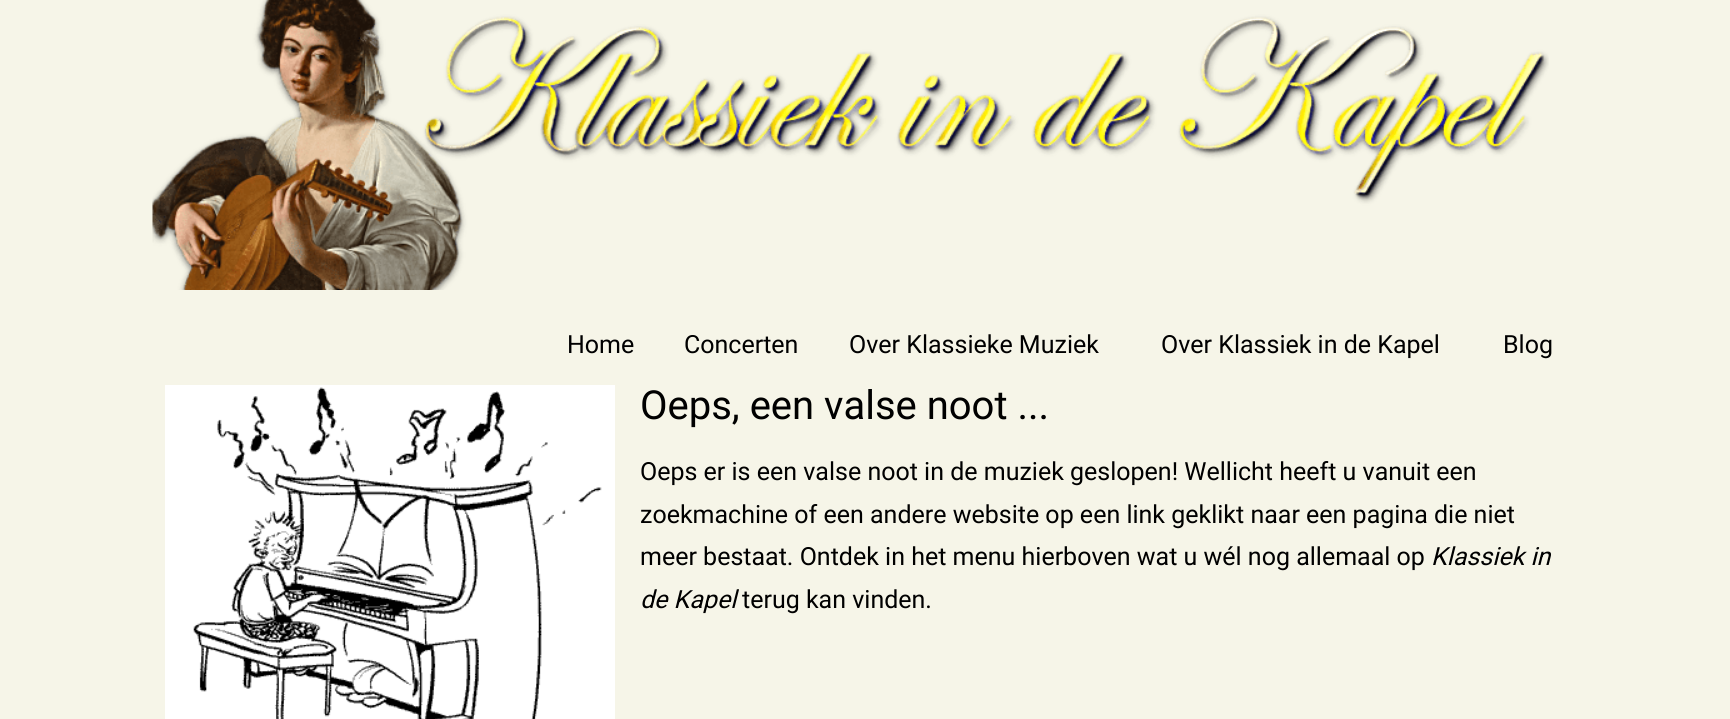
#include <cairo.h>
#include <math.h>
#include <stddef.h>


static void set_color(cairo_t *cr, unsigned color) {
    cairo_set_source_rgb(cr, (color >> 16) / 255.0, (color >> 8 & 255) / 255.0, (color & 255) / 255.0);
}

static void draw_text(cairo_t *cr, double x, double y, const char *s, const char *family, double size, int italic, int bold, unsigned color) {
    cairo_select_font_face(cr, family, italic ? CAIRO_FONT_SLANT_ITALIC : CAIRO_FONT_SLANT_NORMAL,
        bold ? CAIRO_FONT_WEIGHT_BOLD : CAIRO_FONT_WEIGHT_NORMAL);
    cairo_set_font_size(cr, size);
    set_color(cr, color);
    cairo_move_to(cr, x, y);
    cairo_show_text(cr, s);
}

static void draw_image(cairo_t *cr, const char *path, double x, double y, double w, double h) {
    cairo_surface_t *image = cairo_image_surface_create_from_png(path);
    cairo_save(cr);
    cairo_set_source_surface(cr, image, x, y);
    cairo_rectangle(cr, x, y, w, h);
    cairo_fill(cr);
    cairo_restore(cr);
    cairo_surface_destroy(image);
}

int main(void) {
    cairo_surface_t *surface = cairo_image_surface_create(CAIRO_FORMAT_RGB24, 1730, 719);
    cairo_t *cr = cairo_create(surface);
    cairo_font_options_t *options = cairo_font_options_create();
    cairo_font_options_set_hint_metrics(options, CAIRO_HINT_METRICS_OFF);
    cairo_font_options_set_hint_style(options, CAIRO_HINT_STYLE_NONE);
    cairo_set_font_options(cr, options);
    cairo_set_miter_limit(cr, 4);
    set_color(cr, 0xF6F5E8);
    cairo_paint(cr);
    draw_image(cr, "assets/img1.png", 152, 0, 1397, 290);
    draw_text(cr, 567, 353, "Home", "Roboto", 25, 0, 0, 0x000000);
    draw_text(cr, 684, 353, "Concerten", "Roboto", 25, 0, 0, 0x000000);
    draw_text(cr, 849, 353, "Over Klassieke Muziek", "Roboto", 25, 0, 0, 0x000000);
    draw_text(cr, 1161, 353, "Over Klassiek in de Kapel", "Roboto", 25, 0, 0, 0x000000);
    draw_text(cr, 1503, 353, "Blog", "Roboto", 25, 0, 0, 0x000000);
    draw_image(cr, "assets/img2.png", 165, 385, 450, 334);
    draw_text(cr, 640, 419, "Oeps, een valse noot ...", "Roboto", 40, 0, 0, 0x000000);
    draw_text(cr, 640, 480, "Oeps er is een valse noot in de muziek geslopen! Wellicht heeft u vanuit een", "Roboto", 25, 0, 0, 0x000000);
    draw_text(cr, 640, 523, "zoekmachine of een andere website op een link geklikt naar een pagina die niet", "Roboto", 25, 0, 0, 0x000000);
    draw_text(cr, 640, 565, "meer bestaat. Ontdek in het menu hierboven wat u wél nog allemaal op", "Roboto", 25, 0, 0, 0x000000);
    draw_text(cr, 1431, 565, "Klassiek in", "Roboto", 25, 1, 0, 0x000000);
    draw_text(cr, 640, 608, "de Kapel", "Roboto", 25, 1, 0, 0x000000);
    draw_text(cr, 742, 608, "terug kan vinden.", "Roboto", 25, 0, 0, 0x000000);
    cairo_surface_write_to_png(surface, "output.png");
    cairo_font_options_destroy(options);
    cairo_destroy(cr);
    cairo_surface_destroy(surface);
    return 0;
}
